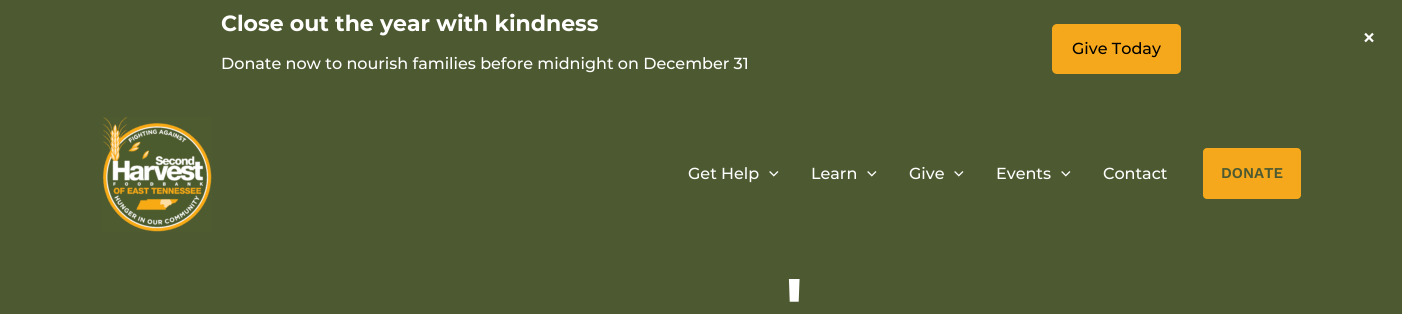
#include <cairo.h>
#include <math.h>
#include <stddef.h>


static void set_color(cairo_t *cr, unsigned color) {
    cairo_set_source_rgb(cr, (color >> 16) / 255.0, (color >> 8 & 255) / 255.0, (color & 255) / 255.0);
}

static void draw_text(cairo_t *cr, double x, double y, const char *s, const char *family, double size, int italic, int bold, unsigned color) {
    cairo_select_font_face(cr, family, italic ? CAIRO_FONT_SLANT_ITALIC : CAIRO_FONT_SLANT_NORMAL,
        bold ? CAIRO_FONT_WEIGHT_BOLD : CAIRO_FONT_WEIGHT_NORMAL);
    cairo_set_font_size(cr, size);
    set_color(cr, color);
    cairo_move_to(cr, x, y);
    cairo_show_text(cr, s);
}

static void rounded_rect(cairo_t *cr, double x, double y, double w, double h, double r) {
    cairo_new_sub_path(cr);
    cairo_arc(cr, x + w - r, y + h - r, r, 0, M_PI / 2);
    cairo_arc(cr, x + r, y + h - r, r, M_PI / 2, M_PI);
    cairo_arc(cr, x + r, y + r, r, M_PI, 1.5 * M_PI);
    cairo_arc(cr, x + w - r, y + r, r, 1.5 * M_PI, 2 * M_PI);
    cairo_close_path(cr);
}

static void draw_image(cairo_t *cr, const char *path, double x, double y, double w, double h) {
    cairo_surface_t *image = cairo_image_surface_create_from_png(path);
    cairo_save(cr);
    cairo_set_source_surface(cr, image, x, y);
    cairo_rectangle(cr, x, y, w, h);
    cairo_fill(cr);
    cairo_restore(cr);
    cairo_surface_destroy(image);
}

int main(void) {
    cairo_surface_t *surface = cairo_image_surface_create(CAIRO_FORMAT_RGB24, 1402, 314);
    cairo_t *cr = cairo_create(surface);
    cairo_font_options_t *options = cairo_font_options_create();
    cairo_font_options_set_hint_metrics(options, CAIRO_HINT_METRICS_OFF);
    cairo_font_options_set_hint_style(options, CAIRO_HINT_STYLE_NONE);
    cairo_set_font_options(cr, options);
    cairo_set_miter_limit(cr, 4);
    set_color(cr, 0x4D5A31);
    cairo_paint(cr);
    draw_text(cr, 221, 31, "Close out the year with kindness", "Montserrat", 22, 0, 1, 0xFFFFFF);
    draw_text(cr, 221, 69, "Donate now to nourish families before midnight on December 31", "Montserrat Medium", 16, 0, 0, 0xFFFFFF);
    set_color(cr, 0xF5A81C);
    rounded_rect(cr, 1052, 24, 129, 50, 5);
    cairo_fill(cr);
    draw_text(cr, 1072, 54, "Give Today", "Montserrat Medium", 16, 0, 0, 0x000000);
    draw_text(cr, 1363, 44, "×", "Work Sans SemiBold", 20, 0, 0, 0xFFFFFF);
    draw_image(cr, "assets/img1.png", 102, 117, 110, 115);
    draw_text(cr, 688, 179, "Get Help", "Montserrat Medium", 16, 0, 0, 0xFFFFFF);
    draw_image(cr, "assets/img2.png", 769, 171, 10, 6);
    draw_text(cr, 811, 179, "Learn", "Montserrat Medium", 16, 0, 0, 0xFFFFFF);
    draw_image(cr, "assets/img2.png", 867, 171, 10, 6);
    draw_text(cr, 909, 179, "Give", "Montserrat Medium", 16, 0, 0, 0xFFFFFF);
    draw_image(cr, "assets/img2.png", 954, 171, 10, 6);
    draw_text(cr, 996, 179, "Events", "Montserrat Medium", 16, 0, 0, 0xFFFFFF);
    draw_image(cr, "assets/img2.png", 1061, 171, 10, 6);
    draw_text(cr, 1103, 179, "Contact", "Montserrat Medium", 16, 0, 0, 0xFFFFFF);
    set_color(cr, 0xF5A81C);
    rounded_rect(cr, 1203, 148, 98, 51, 4);
    cairo_fill(cr);
    draw_text(cr, 1221, 178, "DONATE", "Work Sans SemiBold", 15, 0, 0, 0x4D5A31);
    draw_text(cr, 785, 335, "'", "Montserrat", 80, 0, 1, 0xFFFFFF);
    cairo_surface_write_to_png(surface, "output.png");
    cairo_font_options_destroy(options);
    cairo_destroy(cr);
    cairo_surface_destroy(surface);
    return 0;
}
